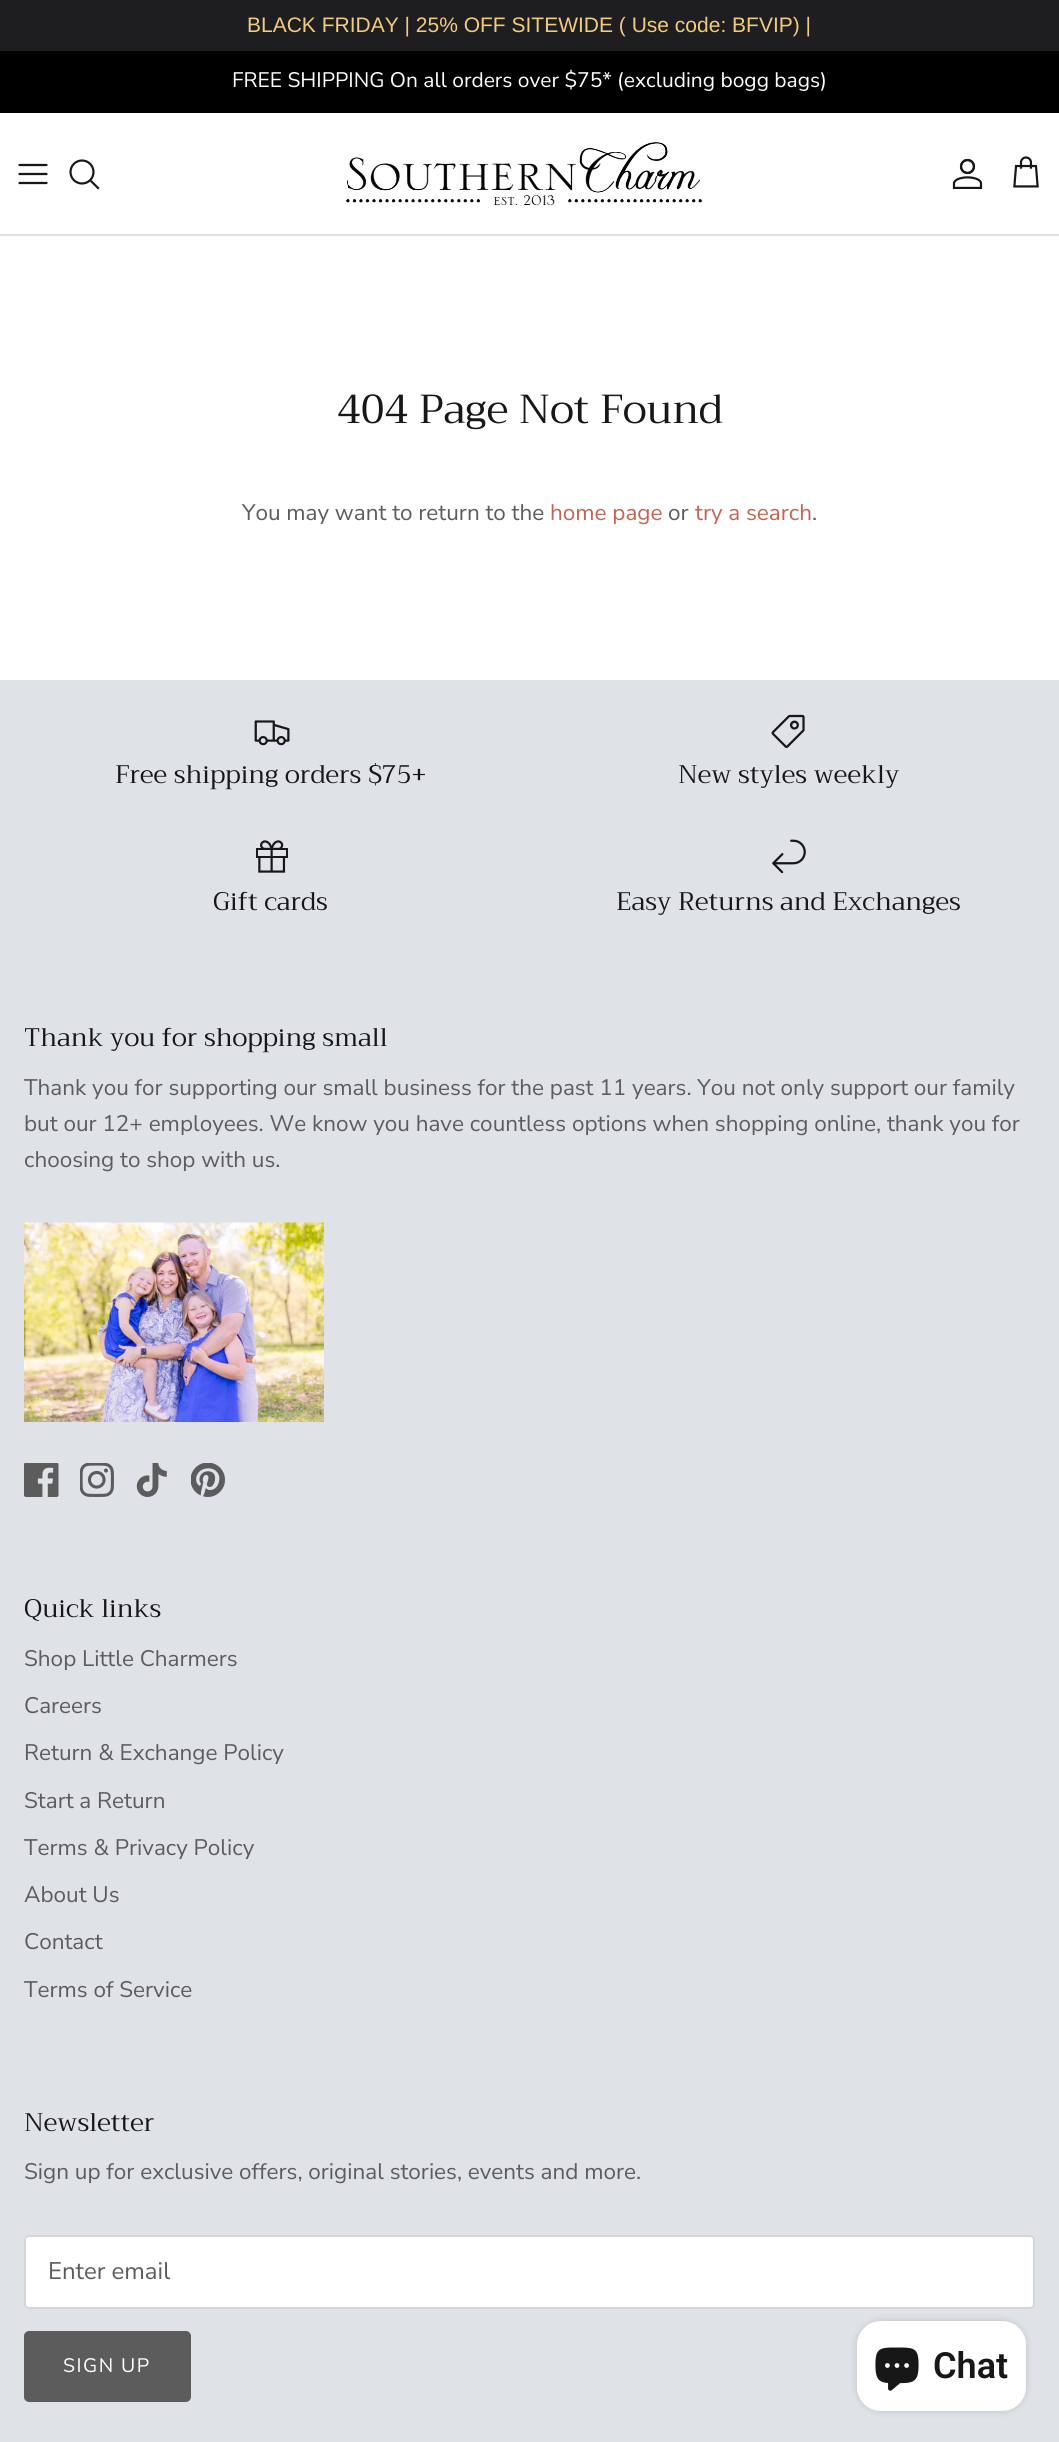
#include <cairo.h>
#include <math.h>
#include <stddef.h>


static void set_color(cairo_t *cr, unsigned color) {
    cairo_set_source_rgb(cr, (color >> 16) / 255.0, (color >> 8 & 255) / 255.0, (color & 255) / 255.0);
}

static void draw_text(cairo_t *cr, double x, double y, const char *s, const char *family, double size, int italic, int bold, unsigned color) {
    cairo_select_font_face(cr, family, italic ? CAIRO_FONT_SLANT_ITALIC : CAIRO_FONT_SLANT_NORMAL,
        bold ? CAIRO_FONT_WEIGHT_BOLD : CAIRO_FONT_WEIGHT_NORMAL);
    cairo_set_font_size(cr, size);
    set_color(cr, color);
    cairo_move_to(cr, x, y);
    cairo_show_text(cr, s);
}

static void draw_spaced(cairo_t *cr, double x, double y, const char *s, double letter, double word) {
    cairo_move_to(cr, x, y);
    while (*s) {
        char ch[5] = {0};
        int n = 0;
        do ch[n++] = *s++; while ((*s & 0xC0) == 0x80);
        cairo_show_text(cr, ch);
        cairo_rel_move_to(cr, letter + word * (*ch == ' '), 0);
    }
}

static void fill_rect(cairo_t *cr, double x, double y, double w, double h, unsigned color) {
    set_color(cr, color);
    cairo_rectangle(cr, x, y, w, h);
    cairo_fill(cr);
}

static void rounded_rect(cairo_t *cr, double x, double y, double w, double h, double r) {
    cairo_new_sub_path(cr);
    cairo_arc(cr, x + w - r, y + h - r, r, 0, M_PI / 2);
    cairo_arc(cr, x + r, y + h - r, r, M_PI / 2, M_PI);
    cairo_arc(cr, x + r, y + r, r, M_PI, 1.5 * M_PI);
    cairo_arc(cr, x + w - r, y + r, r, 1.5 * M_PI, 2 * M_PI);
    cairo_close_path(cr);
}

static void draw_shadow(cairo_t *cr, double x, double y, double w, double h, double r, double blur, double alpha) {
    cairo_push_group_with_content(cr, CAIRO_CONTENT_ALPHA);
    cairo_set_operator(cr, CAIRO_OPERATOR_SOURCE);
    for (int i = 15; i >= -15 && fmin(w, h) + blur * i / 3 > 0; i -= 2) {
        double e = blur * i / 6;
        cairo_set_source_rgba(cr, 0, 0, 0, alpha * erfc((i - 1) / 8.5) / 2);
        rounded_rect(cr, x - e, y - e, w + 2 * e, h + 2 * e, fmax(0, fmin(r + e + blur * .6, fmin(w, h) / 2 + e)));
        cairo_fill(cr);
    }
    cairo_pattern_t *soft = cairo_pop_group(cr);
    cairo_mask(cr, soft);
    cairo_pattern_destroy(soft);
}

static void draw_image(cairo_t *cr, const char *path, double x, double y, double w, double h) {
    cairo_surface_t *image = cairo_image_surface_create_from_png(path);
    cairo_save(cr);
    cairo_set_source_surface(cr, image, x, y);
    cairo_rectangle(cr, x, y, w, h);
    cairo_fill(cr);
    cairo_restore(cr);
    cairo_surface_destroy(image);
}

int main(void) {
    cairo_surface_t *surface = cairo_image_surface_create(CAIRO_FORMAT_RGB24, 1059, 2442);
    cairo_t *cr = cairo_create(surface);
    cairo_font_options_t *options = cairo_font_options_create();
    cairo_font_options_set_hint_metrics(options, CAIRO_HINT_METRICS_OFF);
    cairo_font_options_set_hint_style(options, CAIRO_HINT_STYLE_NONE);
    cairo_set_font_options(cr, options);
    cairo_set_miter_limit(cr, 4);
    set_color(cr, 0xFFFFFF);
    cairo_paint(cr);
    fill_rect(cr, 0, 0, 1059, 51, 0x1E1E20);
    draw_text(cr, 247, 32, "BLACK FRIDAY | 25% OFF SITEWIDE ( Use code: BFVIP) |", "Liberation Sans", 21, 0, 0, 0xF2CA80);
    fill_rect(cr, 0, 51, 1059, 62, 0x000000);
    draw_text(cr, 232, 87, "FREE SHIPPING On all orders over $75* (excluding bogg bags)", "Nunito Sans", 21, 0, 0, 0xFFFFFF);
    fill_rect(cr, 0, 234, 1059, 2, 0xDFE3E8);
    cairo_new_path(cr);
    cairo_move_to(cr, 19.5, 174);
    cairo_line_to(cr, 46.5, 174);
    cairo_move_to(cr, 19.5, 165);
    cairo_line_to(cr, 46.5, 165);
    cairo_move_to(cr, 19.5, 183);
    cairo_line_to(cr, 46.5, 183);
    set_color(cr, 0x171717);
    cairo_set_line_width(cr, 2.2);
    cairo_set_line_cap(cr, CAIRO_LINE_CAP_ROUND);
    cairo_set_line_join(cr, CAIRO_LINE_JOIN_ROUND);
    cairo_stroke(cr);
    cairo_arc(cr, 82, 172, 11.5, 0, 2 * M_PI);
    cairo_set_line_cap(cr, CAIRO_LINE_CAP_BUTT);
    cairo_set_line_join(cr, CAIRO_LINE_JOIN_MITER);
    cairo_stroke(cr);
    cairo_new_path(cr);
    cairo_move_to(cr, 91.5, 181.5);
    cairo_line_to(cr, 98, 188);
    cairo_set_line_cap(cr, CAIRO_LINE_CAP_SQUARE);
    cairo_stroke(cr);
    draw_image(cr, "assets/img1.png", 346, 142, 357, 64);
    draw_image(cr, "assets/img2.png", 952, 158, 31, 31);
    draw_image(cr, "assets/img3.png", 1013, 156, 26, 32);
    draw_text(cr, 337, 423, "404 Page Not Found", "Trirong", 40.5, 0, 0, 0x171717);
    draw_text(cr, 242, 520, "You may want to return to the", "Nunito Sans", 22.5, 0, 0, 0x5C5C5C);
    draw_text(cr, 550, 520, "home page", "Nunito Sans", 22.5, 0, 0, 0xC16452);
    draw_text(cr, 668, 520, "or", "Nunito Sans", 22.5, 0, 0, 0x5C5C5C);
    draw_text(cr, 695, 520, "try a search", "Nunito Sans", 22.5, 0, 0, 0xC16452);
    draw_text(cr, 812, 520, ".", "Nunito Sans", 22.5, 0, 0, 0x5C5C5C);
    fill_rect(cr, 0, 680, 1059, 1762, 0xDFE3E8);
    draw_image(cr, "assets/img4.png", 254, 720, 36, 26);
    draw_text(cr, 115, 783, "Free shipping orders $75+", "Trirong", 25.4, 0, 0, 0x171717);
    draw_image(cr, "assets/img5.png", 771, 714, 34, 34);
    draw_text(cr, 678, 783, "New styles weekly", "Trirong", 25.4, 0, 0, 0x171717);
    draw_image(cr, "assets/img6.png", 256, 840, 32, 33);
    draw_text(cr, 213, 910, "Gift cards", "Trirong", 25.4, 0, 0, 0x171717);
    draw_image(cr, "assets/img7.png", 772, 839, 34, 35);
    draw_text(cr, 616, 910, "Easy Returns and Exchanges", "Trirong", 25.4, 0, 0, 0x171717);
    draw_text(cr, 24, 1046, "Thank you for shopping small", "Trirong", 25.4, 0, 0, 0x171717);
    draw_text(cr, 24, 1095, "Thank you for supporting our small business for the past 11 years. You not only support our family", "Nunito Sans", 22.5, 0, 0, 0x5C5C5C);
    draw_text(cr, 24, 1131, "but our 12+ employees. We know you have countless options when shopping online, thank you for", "Nunito Sans", 22.5, 0, 0, 0x5C5C5C);
    draw_text(cr, 24, 1167, "choosing to shop with us.", "Nunito Sans", 22.5, 0, 0, 0x5C5C5C);
    draw_image(cr, "assets/img8.png", 24, 1222, 300, 200);
    draw_image(cr, "assets/img9.png", 24, 1463, 35, 34);
    draw_image(cr, "assets/img10.png", 80, 1463, 34, 34);
    draw_image(cr, "assets/img11.png", 136, 1463, 31, 34);
    draw_image(cr, "assets/img12.png", 191, 1463, 34, 34);
    draw_text(cr, 24, 1617, "Quick links", "Trirong", 25.4, 0, 0, 0x171717);
    draw_text(cr, 24, 1666, "Shop Little Charmers", "Nunito Sans", 22.5, 0, 0, 0x5C5C5C);
    draw_text(cr, 24, 1713, "Careers", "Nunito Sans", 22.5, 0, 0, 0x5C5C5C);
    draw_text(cr, 24, 1760, "Return & Exchange Policy", "Nunito Sans", 22.5, 0, 0, 0x5C5C5C);
    draw_text(cr, 24, 1808, "Start a Return", "Nunito Sans", 22.5, 0, 0, 0x5C5C5C);
    draw_text(cr, 24, 1855, "Terms & Privacy Policy", "Nunito Sans", 22.5, 0, 0, 0x5C5C5C);
    draw_text(cr, 24, 1902, "About Us", "Nunito Sans", 22.5, 0, 0, 0x5C5C5C);
    draw_text(cr, 24, 1949, "Contact", "Nunito Sans", 22.5, 0, 0, 0x5C5C5C);
    draw_text(cr, 24, 1997, "Terms of Service", "Nunito Sans", 22.5, 0, 0, 0x5C5C5C);
    draw_text(cr, 24, 2131, "Newsletter", "Trirong", 25.4, 0, 0, 0x171717);
    draw_text(cr, 24, 2179, "Sign up for exclusive offers, original stories, events and more.", "Nunito Sans", 22.5, 0, 0, 0x5C5C5C);
    set_color(cr, 0xFFFFFF);
    rounded_rect(cr, 25, 2236, 1009, 72, 4);
    cairo_fill_preserve(cr);
    set_color(cr, 0xD6D6D6);
    cairo_set_line_width(cr, 2);
    cairo_set_line_cap(cr, CAIRO_LINE_CAP_BUTT);
    cairo_stroke(cr);
    draw_text(cr, 48, 2279, "Enter email", "Nunito Sans", 24, 0, 0, 0x5C5C5C);
    rounded_rect(cr, 25, 2332, 165, 69, 4);
    cairo_fill_preserve(cr);
    cairo_stroke(cr);
    cairo_set_font_size(cr, 19.5);
    set_color(cr, 0xFFFFFF);
    draw_spaced(cr, 63, 2372, "SIGN UP", 1.5, 0);
    set_color(cr, 0x000000);
    draw_shadow(cr, 857, 2321, 169, 90, 24, 4, 0.15);
    set_color(cr, 0xFFFFFF);
    rounded_rect(cr, 857, 2321, 169, 90, 24);
    cairo_fill(cr);
    draw_image(cr, "assets/img13.png", 875, 2347, 44, 44);
    draw_text(cr, 933, 2378, "Chat", "Roboto SemiBold", 36, 0, 0, 0x171717);
    cairo_surface_write_to_png(surface, "output.png");
    cairo_font_options_destroy(options);
    cairo_destroy(cr);
    cairo_surface_destroy(surface);
    return 0;
}
